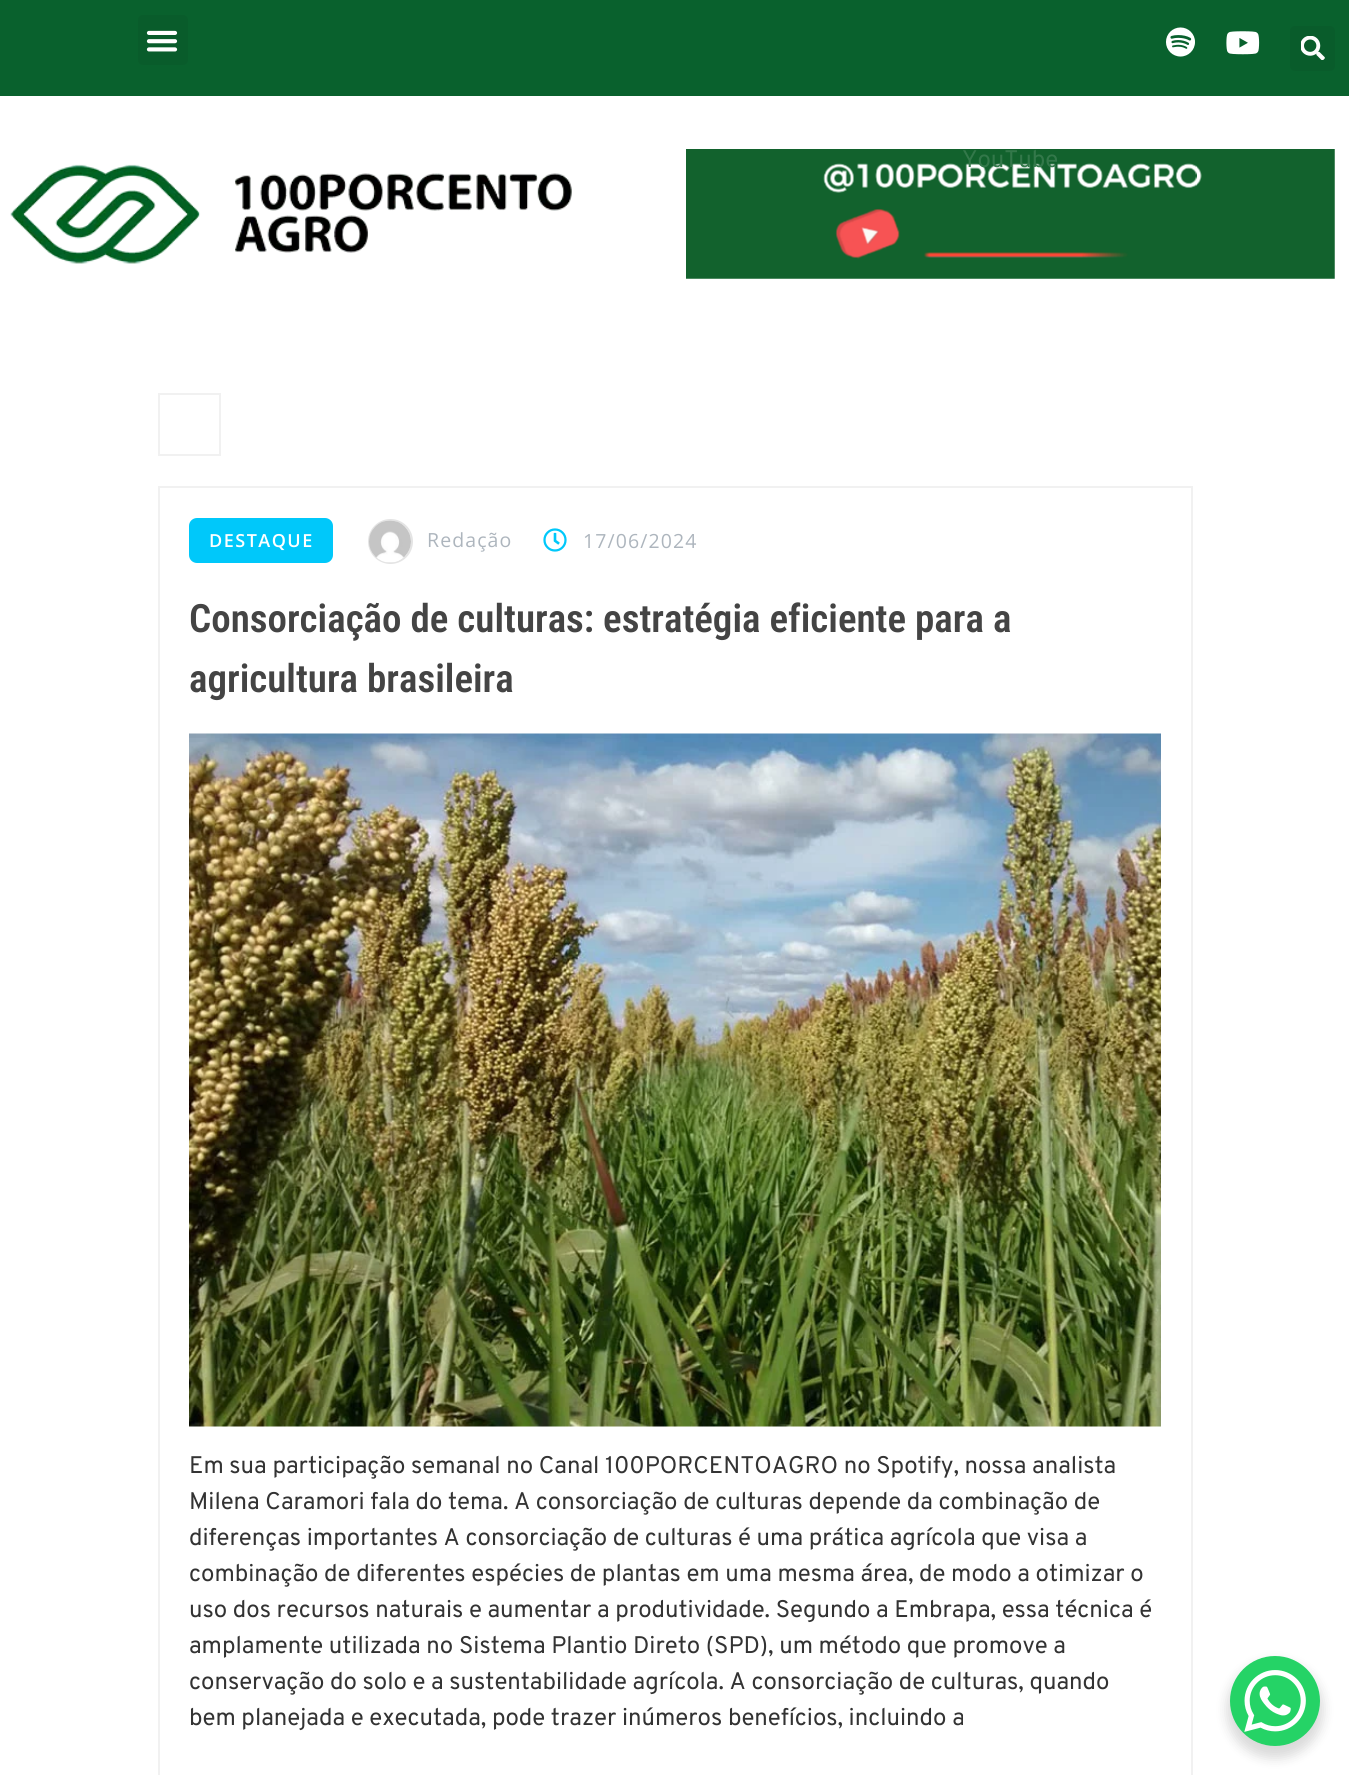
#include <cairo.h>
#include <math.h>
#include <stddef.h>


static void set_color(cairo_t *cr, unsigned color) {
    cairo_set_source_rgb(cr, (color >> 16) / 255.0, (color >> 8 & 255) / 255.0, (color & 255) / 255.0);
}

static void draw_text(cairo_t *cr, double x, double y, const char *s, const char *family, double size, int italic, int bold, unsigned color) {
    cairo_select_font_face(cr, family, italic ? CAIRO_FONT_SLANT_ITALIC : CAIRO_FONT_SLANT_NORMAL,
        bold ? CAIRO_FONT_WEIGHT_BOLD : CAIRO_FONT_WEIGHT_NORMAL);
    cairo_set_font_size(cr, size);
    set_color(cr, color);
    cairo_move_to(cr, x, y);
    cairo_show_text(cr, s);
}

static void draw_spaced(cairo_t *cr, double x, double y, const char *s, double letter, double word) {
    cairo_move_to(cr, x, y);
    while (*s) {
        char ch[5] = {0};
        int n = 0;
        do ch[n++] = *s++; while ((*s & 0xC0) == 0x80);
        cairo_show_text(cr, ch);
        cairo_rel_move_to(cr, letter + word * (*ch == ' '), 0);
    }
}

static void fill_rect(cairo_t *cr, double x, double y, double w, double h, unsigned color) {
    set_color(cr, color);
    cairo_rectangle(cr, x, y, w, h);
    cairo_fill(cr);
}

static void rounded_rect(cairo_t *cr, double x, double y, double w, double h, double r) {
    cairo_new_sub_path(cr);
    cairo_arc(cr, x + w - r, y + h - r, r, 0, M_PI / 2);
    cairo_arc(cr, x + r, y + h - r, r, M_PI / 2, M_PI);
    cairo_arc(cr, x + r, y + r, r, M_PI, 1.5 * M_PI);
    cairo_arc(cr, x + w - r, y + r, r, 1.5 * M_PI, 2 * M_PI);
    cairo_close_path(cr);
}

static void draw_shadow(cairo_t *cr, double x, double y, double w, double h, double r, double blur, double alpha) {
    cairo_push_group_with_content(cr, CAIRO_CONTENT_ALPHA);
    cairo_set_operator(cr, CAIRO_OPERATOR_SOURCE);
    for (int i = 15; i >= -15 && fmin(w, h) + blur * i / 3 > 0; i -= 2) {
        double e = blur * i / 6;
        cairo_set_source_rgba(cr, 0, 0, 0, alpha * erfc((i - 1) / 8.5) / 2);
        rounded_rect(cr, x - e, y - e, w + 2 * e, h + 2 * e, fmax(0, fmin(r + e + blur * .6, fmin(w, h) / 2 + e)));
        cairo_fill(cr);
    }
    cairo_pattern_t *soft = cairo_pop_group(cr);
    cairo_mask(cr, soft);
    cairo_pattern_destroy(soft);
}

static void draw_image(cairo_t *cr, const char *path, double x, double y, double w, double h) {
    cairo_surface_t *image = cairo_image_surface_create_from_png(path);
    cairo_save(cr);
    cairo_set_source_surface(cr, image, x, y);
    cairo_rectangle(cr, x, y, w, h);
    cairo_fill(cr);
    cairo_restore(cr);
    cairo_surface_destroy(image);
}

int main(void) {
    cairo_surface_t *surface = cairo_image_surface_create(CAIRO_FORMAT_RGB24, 1349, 1775);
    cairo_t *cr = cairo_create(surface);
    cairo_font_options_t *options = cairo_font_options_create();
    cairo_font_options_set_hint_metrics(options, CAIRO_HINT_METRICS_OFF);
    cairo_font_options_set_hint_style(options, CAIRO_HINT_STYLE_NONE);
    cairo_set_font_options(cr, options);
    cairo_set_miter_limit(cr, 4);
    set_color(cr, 0xFFFFFF);
    cairo_paint(cr);
    fill_rect(cr, 0, 0, 1349, 96, 0x09612D);
    set_color(cr, 0x095C2B);
    rounded_rect(cr, 138, 15, 50, 50, 5);
    cairo_fill(cr);
    draw_image(cr, "assets/img1.png", 146, 30, 32, 22);
    draw_image(cr, "assets/img2.png", 1166, 27, 29, 30);
    draw_image(cr, "assets/img3.png", 1226, 31, 34, 24);
    rounded_rect(cr, 1290, 26, 45, 45, 5);
    cairo_fill(cr);
    draw_image(cr, "assets/img4.png", 1301, 36, 24, 24);
    draw_image(cr, "assets/img5.png", 686, 149, 649, 130);
    draw_text(cr, 962, 167, "YouTube", "Overpass", 24, 0, 0, 0x33784A);
    draw_image(cr, "assets/img6.png", 10, 164, 562, 100);
    cairo_rectangle(cr, 159, 394, 61, 61);
    set_color(cr, 0xF1F1F1);
    cairo_stroke(cr);
    cairo_rectangle(cr, 159, 487, 1033, 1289);
    cairo_stroke(cr);
    set_color(cr, 0x00C8FA);
    rounded_rect(cr, 189, 518, 144, 45, 8);
    cairo_fill(cr);
    cairo_select_font_face(cr, "Open Sans SemiBold", CAIRO_FONT_SLANT_NORMAL, CAIRO_FONT_WEIGHT_NORMAL);
    cairo_set_font_size(cr, 18);
    set_color(cr, 0xFFFFFF);
    draw_spaced(cr, 209, 547, "DESTAQUE", 1.5, 0);
    cairo_new_path(cr);
    cairo_arc(cr, 390.5, 541.5, 21.5, 0, 2 * M_PI);
    set_color(cr, 0xE4E4E4);
    cairo_stroke(cr);
    draw_image(cr, "assets/img7.png", 369, 520, 42, 43);
    cairo_select_font_face(cr, "Open Sans", CAIRO_FONT_SLANT_NORMAL, CAIRO_FONT_WEIGHT_NORMAL);
    cairo_set_font_size(cr, 19.5);
    set_color(cr, 0xADB5BD);
    draw_spaced(cr, 427, 547, "Redação", 1.1, 0);
    draw_image(cr, "assets/img8.png", 543, 528, 24, 24);
    draw_spaced(cr, 583, 548, "17/06/2024", 1.1, 0);
    draw_text(cr, 189, 632, "Consorciação de culturas: estratégia eficiente para a", "Roboto Condensed SemiBold", 39, 0, 0, 0x444444);
    draw_text(cr, 189, 692, "agricultura brasileira", "Roboto Condensed SemiBold", 39, 0, 0, 0x444444);
    draw_image(cr, "assets/img9.png", 189, 733, 972, 694);
    draw_text(cr, 189, 1473, "Em sua participação semanal no Canal 100PORCENTOAGRO no Spotify, nossa analista", "Overpass", 24, 0, 0, 0x333333);
    draw_text(cr, 189, 1509, "Milena Caramori fala do tema. A consorciação de culturas depende da combinação de", "Overpass", 24, 0, 0, 0x333333);
    draw_text(cr, 189, 1545, "diferenças importantes A consorciação de culturas é uma prática agrícola que visa a", "Overpass", 24, 0, 0, 0x333333);
    draw_text(cr, 189, 1581, "combinação de diferentes espécies de plantas em uma mesma área, de modo a otimizar o", "Overpass", 24, 0, 0, 0x333333);
    draw_text(cr, 189, 1617, "uso dos recursos naturais e aumentar a produtividade. Segundo a Embrapa, essa técnica é", "Overpass", 24, 0, 0, 0x333333);
    draw_text(cr, 189, 1653, "amplamente utilizada no Sistema Plantio Direto (SPD), um método que promove a", "Overpass", 24, 0, 0, 0x333333);
    draw_text(cr, 189, 1689, "conservação do solo e a sustentabilidade agrícola. A consorciação de culturas, quando", "Overpass", 24, 0, 0, 0x333333);
    draw_text(cr, 189, 1725, "bem planejada e executada, pode trazer inúmeros benefícios, incluindo a", "Overpass", 24, 0, 0, 0x333333);
    set_color(cr, 0x000000);
    draw_shadow(cr, 1227, 1662, 96, 96, 48, 6, 0.15);
    set_color(cr, 0x25D366);
    cairo_arc(cr, 1275, 1701, 45, 0, 2 * M_PI);
    cairo_fill(cr);
    draw_image(cr, "assets/img10.png", 1244, 1670, 62, 62);
    cairo_surface_write_to_png(surface, "output.png");
    cairo_font_options_destroy(options);
    cairo_destroy(cr);
    cairo_surface_destroy(surface);
    return 0;
}
